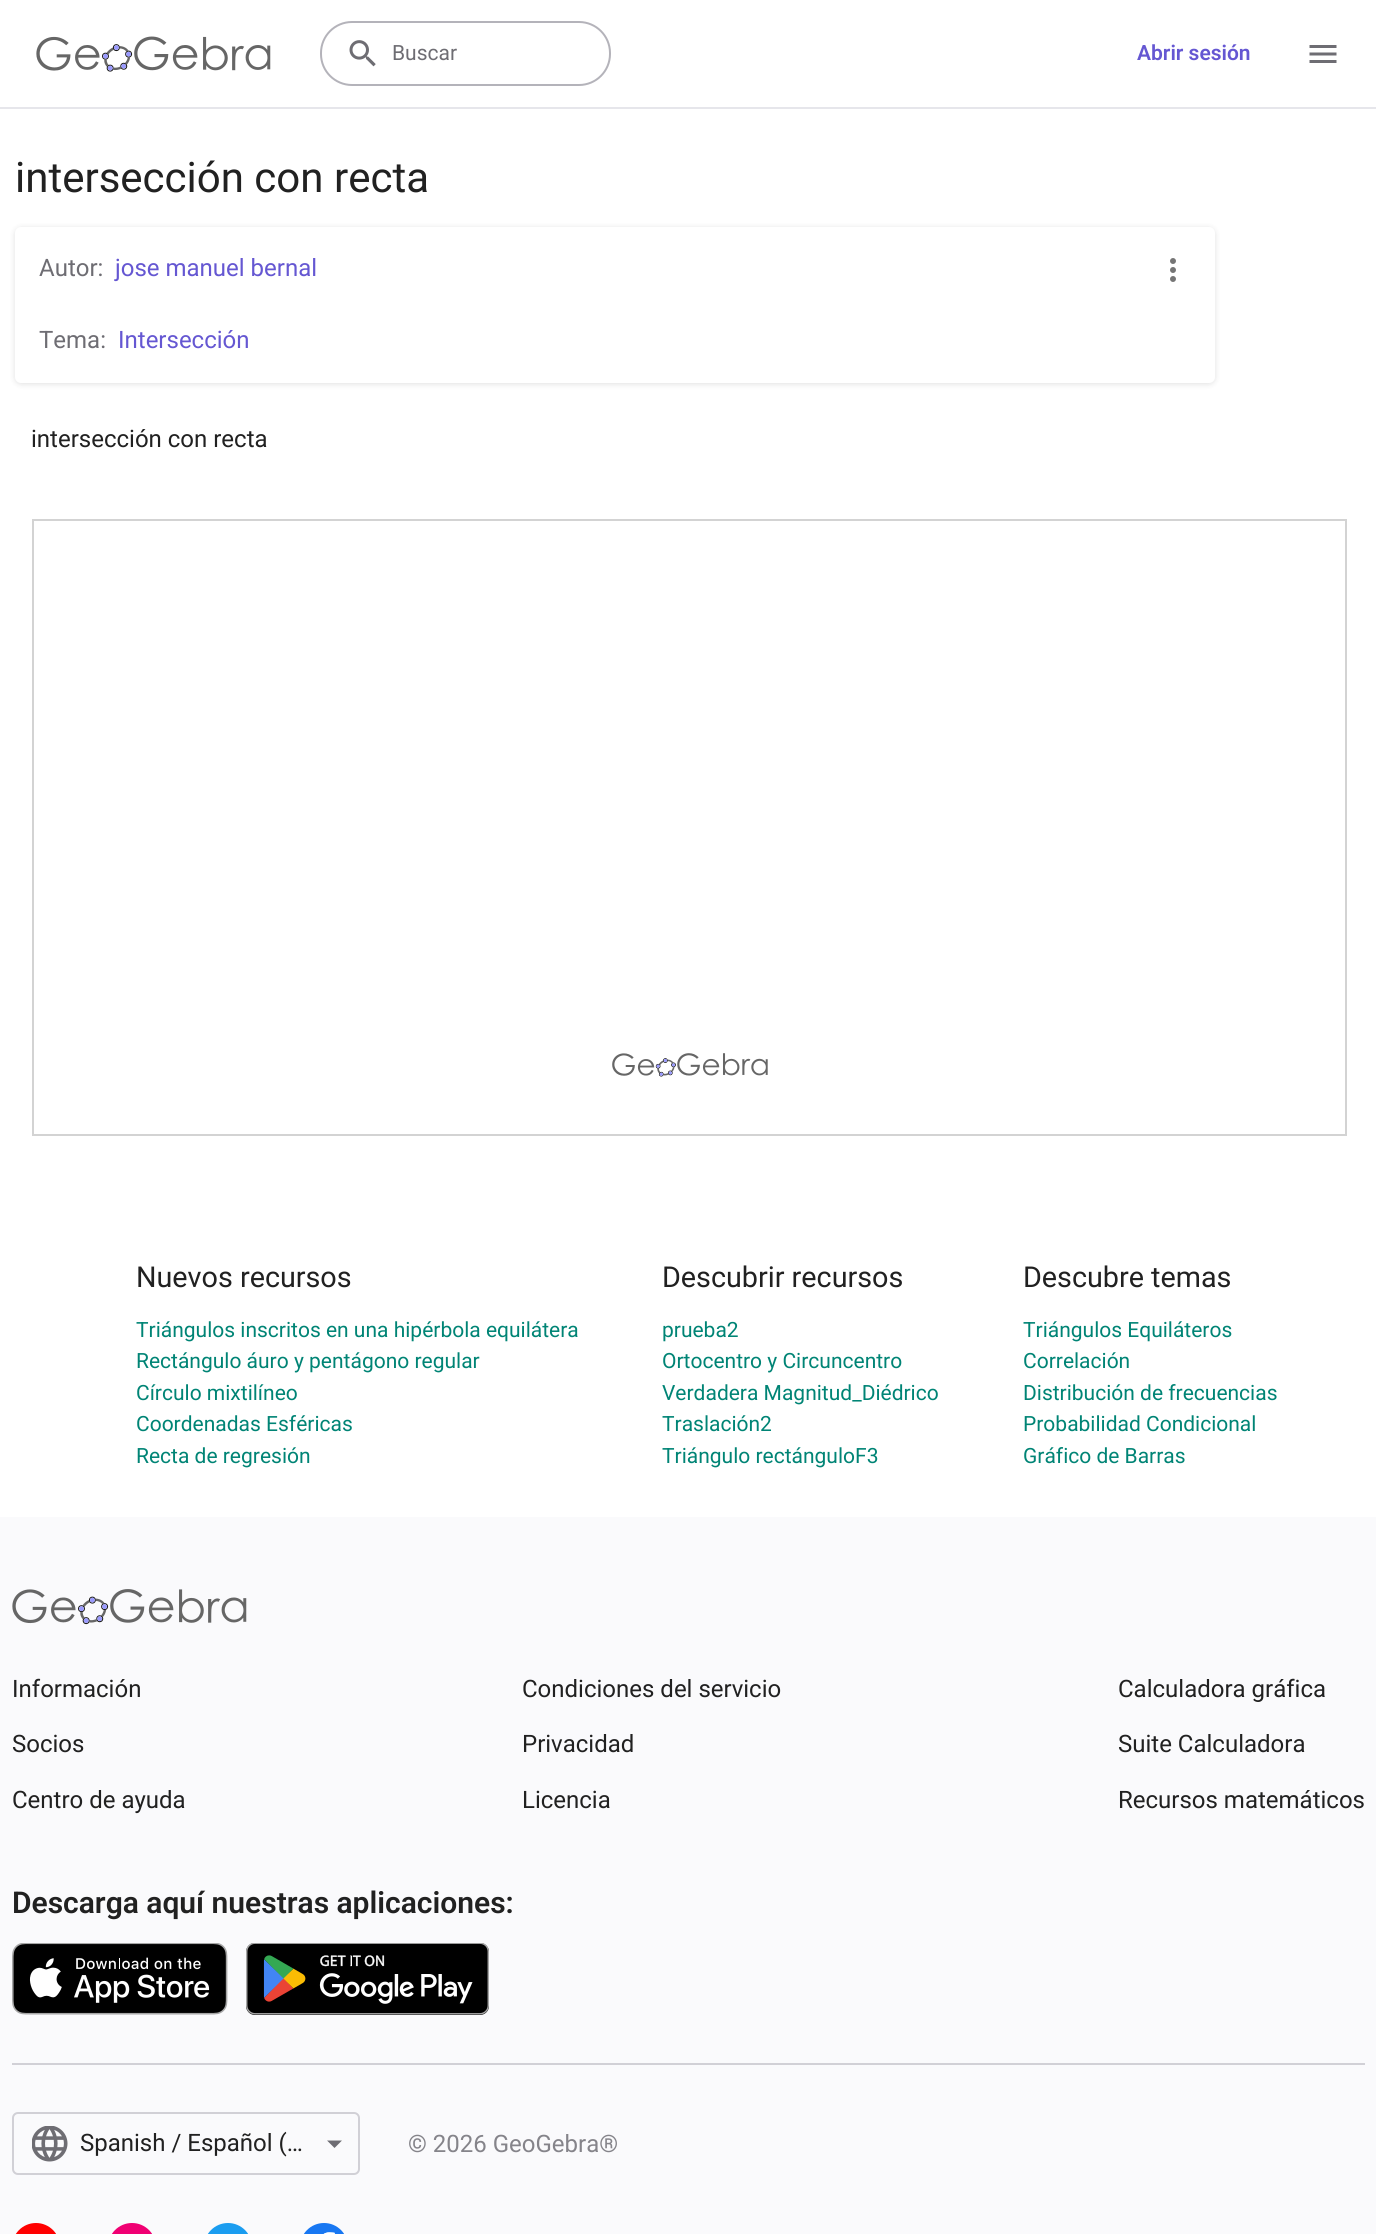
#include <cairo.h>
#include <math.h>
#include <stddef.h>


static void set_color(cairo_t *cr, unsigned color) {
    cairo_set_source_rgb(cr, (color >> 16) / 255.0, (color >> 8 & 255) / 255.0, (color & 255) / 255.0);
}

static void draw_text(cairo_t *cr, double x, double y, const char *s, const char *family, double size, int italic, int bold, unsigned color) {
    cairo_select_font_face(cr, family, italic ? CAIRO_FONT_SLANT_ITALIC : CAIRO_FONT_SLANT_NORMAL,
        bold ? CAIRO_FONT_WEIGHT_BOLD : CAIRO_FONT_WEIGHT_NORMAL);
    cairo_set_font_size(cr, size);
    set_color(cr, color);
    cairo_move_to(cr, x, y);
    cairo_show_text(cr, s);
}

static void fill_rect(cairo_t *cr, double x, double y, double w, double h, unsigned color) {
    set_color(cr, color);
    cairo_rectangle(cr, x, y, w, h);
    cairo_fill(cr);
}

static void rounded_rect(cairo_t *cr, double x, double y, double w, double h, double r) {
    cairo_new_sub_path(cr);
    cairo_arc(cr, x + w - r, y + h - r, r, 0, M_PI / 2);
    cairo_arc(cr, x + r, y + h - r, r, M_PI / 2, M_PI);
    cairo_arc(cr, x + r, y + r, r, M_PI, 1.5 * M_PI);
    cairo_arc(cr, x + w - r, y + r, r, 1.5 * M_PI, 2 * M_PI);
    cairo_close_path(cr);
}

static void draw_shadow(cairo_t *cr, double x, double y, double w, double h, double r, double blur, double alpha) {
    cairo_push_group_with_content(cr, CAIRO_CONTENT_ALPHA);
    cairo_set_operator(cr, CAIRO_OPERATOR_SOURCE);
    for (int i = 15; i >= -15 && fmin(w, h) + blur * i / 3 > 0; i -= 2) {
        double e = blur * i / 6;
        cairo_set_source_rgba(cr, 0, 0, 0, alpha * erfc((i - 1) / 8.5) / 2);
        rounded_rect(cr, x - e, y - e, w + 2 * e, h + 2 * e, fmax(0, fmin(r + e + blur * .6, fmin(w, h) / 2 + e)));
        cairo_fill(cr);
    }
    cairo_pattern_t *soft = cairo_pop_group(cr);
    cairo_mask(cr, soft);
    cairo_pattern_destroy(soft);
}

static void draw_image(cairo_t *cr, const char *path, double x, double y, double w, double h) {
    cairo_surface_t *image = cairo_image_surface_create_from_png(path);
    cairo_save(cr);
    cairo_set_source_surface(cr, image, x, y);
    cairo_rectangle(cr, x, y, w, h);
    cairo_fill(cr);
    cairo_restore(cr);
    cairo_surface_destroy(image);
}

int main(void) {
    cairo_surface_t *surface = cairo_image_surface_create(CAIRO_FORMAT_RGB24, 1376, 2234);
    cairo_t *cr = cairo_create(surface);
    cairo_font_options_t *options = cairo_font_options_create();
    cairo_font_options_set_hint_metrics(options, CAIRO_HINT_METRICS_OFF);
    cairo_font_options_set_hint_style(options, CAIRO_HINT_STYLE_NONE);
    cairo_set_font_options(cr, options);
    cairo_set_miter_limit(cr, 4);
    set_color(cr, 0xFFFFFF);
    cairo_paint(cr);
    fill_rect(cr, 0, 107, 1376, 2, 0xE6E6EB);
    draw_image(cr, "assets/img1.png", 36, 36, 235, 36);
    rounded_rect(cr, 321, 22, 289, 63, 31);
    set_color(cr, 0xB4B3BA);
    cairo_stroke(cr);
    draw_image(cr, "assets/img2.png", 349, 40, 27, 27);
    draw_text(cr, 392, 60, "Buscar", "Roboto", 21, 0, 0, 0x6E6D73);
    draw_text(cr, 1137, 60, "Abrir sesión", "Roboto SemiBold", 21, 0, 0, 0x6557D2);
    draw_image(cr, "assets/img3.png", 1309, 45, 28, 18);
    draw_text(cr, 15, 192, "intersección con recta", "Roboto", 42, 0, 0, 0x212121);
    set_color(cr, 0x1C1C1F);
    draw_shadow(cr, 15, 228, 1200, 156, 6, 3, 0.14);
    set_color(cr, 0xFFFFFF);
    rounded_rect(cr, 15, 227, 1200, 156, 6);
    cairo_fill(cr);
    draw_text(cr, 39, 276, "Autor:", "Roboto", 24, 0, 0, 0x6E6D73);
    draw_text(cr, 115, 276, "jose manuel bernal", "Roboto", 24, 0, 0, 0x6557D2);
    draw_text(cr, 39, 348, "Tema:", "Roboto", 24, 0, 0, 0x6E6D73);
    draw_text(cr, 118, 348, "Intersección", "Roboto", 24, 0, 0, 0x6557D2);
    draw_image(cr, "assets/img4.png", 1170, 258, 6, 24);
    draw_text(cr, 31, 447, "intersección con recta", "Roboto", 24, 0, 0, 0x212121);
    draw_image(cr, "assets/img5.png", 612, 1053, 156, 24);
    cairo_rectangle(cr, 33, 520, 1313, 615);
    set_color(cr, 0xD3D3D3);
    cairo_stroke(cr);
    draw_text(cr, 136, 1287, "Nuevos recursos", "Roboto", 28.75, 0, 0, 0x212121);
    draw_text(cr, 136, 1337, "Triángulos inscritos en una hipérbola equilátera", "Roboto", 21, 0, 0, 0x008475);
    draw_text(cr, 136, 1368, "Rectángulo áuro y pentágono regular", "Roboto", 21, 0, 0, 0x008475);
    draw_text(cr, 136, 1400, "Círculo mixtilíneo", "Roboto", 21, 0, 0, 0x008475);
    draw_text(cr, 136, 1431, "Coordenadas Esféricas", "Roboto", 21, 0, 0, 0x008475);
    draw_text(cr, 136, 1463, "Recta de regresión", "Roboto", 21, 0, 0, 0x008475);
    draw_text(cr, 662, 1287, "Descubrir recursos", "Roboto", 28.75, 0, 0, 0x212121);
    draw_text(cr, 662, 1337, "prueba2", "Roboto", 21, 0, 0, 0x008475);
    draw_text(cr, 662, 1368, "Ortocentro y Circuncentro", "Roboto", 21, 0, 0, 0x008475);
    draw_text(cr, 662, 1400, "Verdadera Magnitud_Diédrico", "Roboto", 21, 0, 0, 0x008475);
    draw_text(cr, 662, 1431, "Traslación2", "Roboto", 21, 0, 0, 0x008475);
    draw_text(cr, 662, 1463, "Triángulo rectánguloF3", "Roboto", 21, 0, 0, 0x008475);
    draw_text(cr, 1023, 1287, "Descubre temas", "Roboto", 28.75, 0, 0, 0x212121);
    draw_text(cr, 1023, 1337, "Triángulos Equiláteros", "Roboto", 21, 0, 0, 0x008475);
    draw_text(cr, 1023, 1368, "Correlación", "Roboto", 21, 0, 0, 0x008475);
    draw_text(cr, 1023, 1400, "Distribución de frecuencias", "Roboto", 21, 0, 0, 0x008475);
    draw_text(cr, 1023, 1431, "Probabilidad Condicional", "Roboto", 21, 0, 0, 0x008475);
    draw_text(cr, 1023, 1463, "Gráfico de Barras", "Roboto", 21, 0, 0, 0x008475);
    fill_rect(cr, 0, 1517, 1376, 717, 0xFAFAFC);
    draw_image(cr, "assets/img6.png", 12, 1589, 235, 36);
    draw_text(cr, 12, 1697, "Información", "Roboto", 24, 0, 0, 0x212121);
    draw_text(cr, 12, 1752, "Socios", "Roboto", 24, 0, 0, 0x212121);
    draw_text(cr, 12, 1808, "Centro de ayuda", "Roboto", 24, 0, 0, 0x212121);
    draw_text(cr, 522, 1697, "Condiciones del servicio", "Roboto", 24, 0, 0, 0x212121);
    draw_text(cr, 522, 1752, "Privacidad", "Roboto", 24, 0, 0, 0x212121);
    draw_text(cr, 522, 1808, "Licencia", "Roboto", 24, 0, 0, 0x212121);
    draw_text(cr, 1118, 1697, "Calculadora gráfica", "Roboto", 24, 0, 0, 0x212121);
    draw_text(cr, 1118, 1752, "Suite Calculadora", "Roboto", 24, 0, 0, 0x212121);
    draw_text(cr, 1118, 1808, "Recursos matemáticos", "Roboto", 24, 0, 0, 0x212121);
    draw_text(cr, 12, 1913, "Descarga aquí nuestras aplicaciones:", "Roboto SemiBold", 30, 0, 0, 0x212121);
    draw_image(cr, "assets/img7.png", 12, 1943, 216, 72);
    draw_image(cr, "assets/img8.png", 246, 1943, 243, 72);
    fill_rect(cr, 12, 2063, 1353, 2, 0xD1D0D6);
    rounded_rect(cr, 13, 2113, 346, 61, 5);
    cairo_stroke(cr);
    draw_image(cr, "assets/img9.png", 32, 2126, 36, 36);
    draw_text(cr, 80, 2151, "Spanish / Español (…", "Roboto", 24, 0, 0, 0x212121);
    set_color(cr, 0x6E6D73);
    cairo_new_path(cr);
    cairo_move_to(cr, 327, 2140.5);
    cairo_line_to(cr, 334.5, 2148);
    cairo_line_to(cr, 342, 2140.5);
    cairo_close_path(cr);
    cairo_fill(cr);
    draw_text(cr, 408, 2152, "© 2026 GeoGebra®", "Roboto", 24, 0, 0, 0x85848A);
    draw_image(cr, "assets/img10.png", 15, 2223, 41, 11);
    draw_image(cr, "assets/img11.png", 111, 2223, 41, 11);
    draw_image(cr, "assets/img12.png", 207, 2223, 41, 11);
    draw_image(cr, "assets/img13.png", 303, 2223, 41, 11);
    cairo_surface_write_to_png(surface, "output.png");
    cairo_font_options_destroy(options);
    cairo_destroy(cr);
    cairo_surface_destroy(surface);
    return 0;
}
